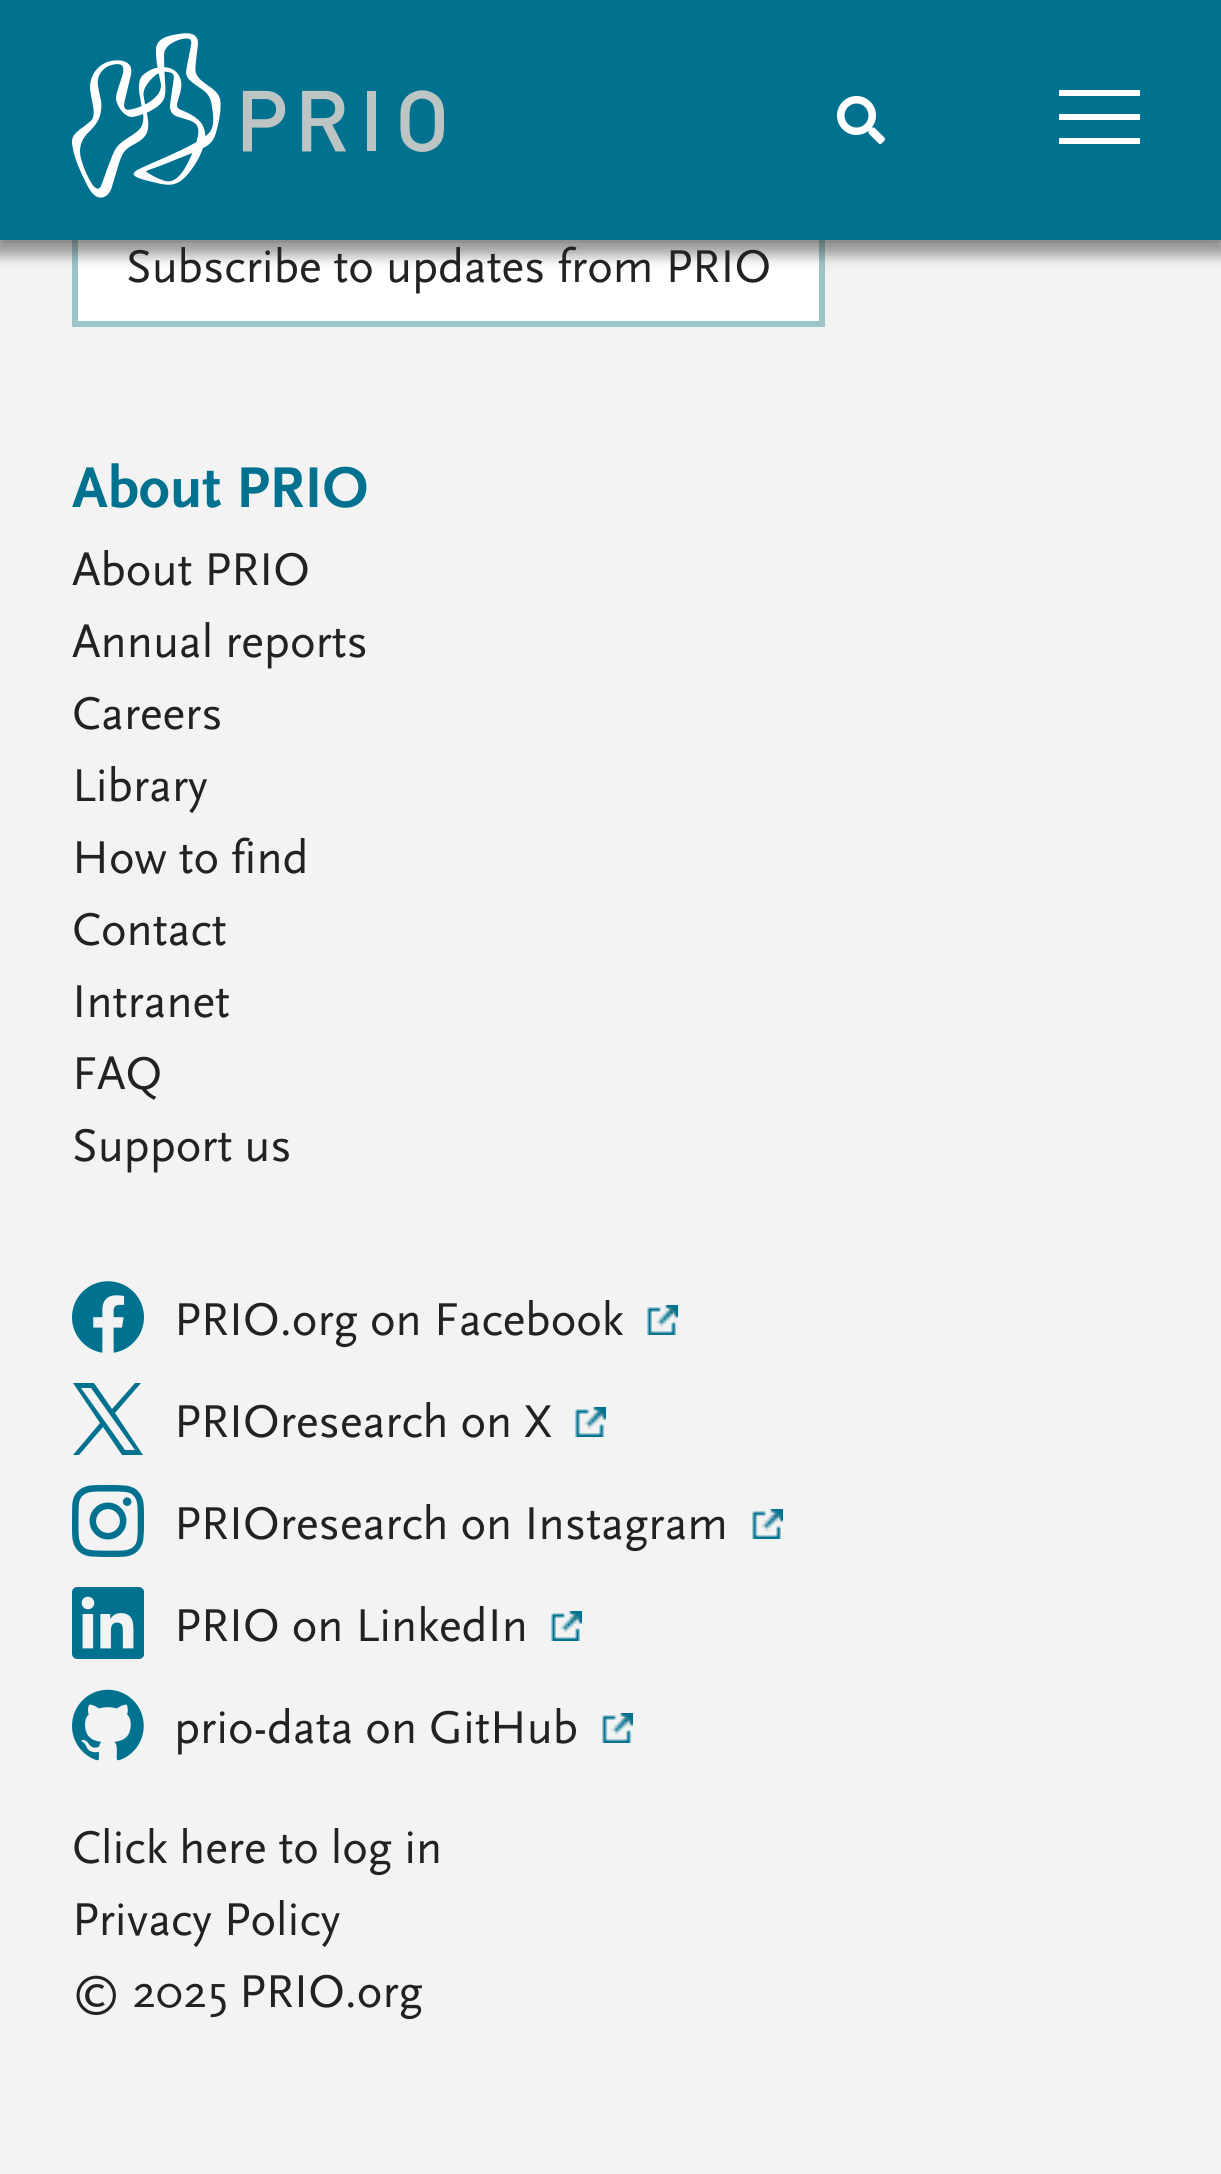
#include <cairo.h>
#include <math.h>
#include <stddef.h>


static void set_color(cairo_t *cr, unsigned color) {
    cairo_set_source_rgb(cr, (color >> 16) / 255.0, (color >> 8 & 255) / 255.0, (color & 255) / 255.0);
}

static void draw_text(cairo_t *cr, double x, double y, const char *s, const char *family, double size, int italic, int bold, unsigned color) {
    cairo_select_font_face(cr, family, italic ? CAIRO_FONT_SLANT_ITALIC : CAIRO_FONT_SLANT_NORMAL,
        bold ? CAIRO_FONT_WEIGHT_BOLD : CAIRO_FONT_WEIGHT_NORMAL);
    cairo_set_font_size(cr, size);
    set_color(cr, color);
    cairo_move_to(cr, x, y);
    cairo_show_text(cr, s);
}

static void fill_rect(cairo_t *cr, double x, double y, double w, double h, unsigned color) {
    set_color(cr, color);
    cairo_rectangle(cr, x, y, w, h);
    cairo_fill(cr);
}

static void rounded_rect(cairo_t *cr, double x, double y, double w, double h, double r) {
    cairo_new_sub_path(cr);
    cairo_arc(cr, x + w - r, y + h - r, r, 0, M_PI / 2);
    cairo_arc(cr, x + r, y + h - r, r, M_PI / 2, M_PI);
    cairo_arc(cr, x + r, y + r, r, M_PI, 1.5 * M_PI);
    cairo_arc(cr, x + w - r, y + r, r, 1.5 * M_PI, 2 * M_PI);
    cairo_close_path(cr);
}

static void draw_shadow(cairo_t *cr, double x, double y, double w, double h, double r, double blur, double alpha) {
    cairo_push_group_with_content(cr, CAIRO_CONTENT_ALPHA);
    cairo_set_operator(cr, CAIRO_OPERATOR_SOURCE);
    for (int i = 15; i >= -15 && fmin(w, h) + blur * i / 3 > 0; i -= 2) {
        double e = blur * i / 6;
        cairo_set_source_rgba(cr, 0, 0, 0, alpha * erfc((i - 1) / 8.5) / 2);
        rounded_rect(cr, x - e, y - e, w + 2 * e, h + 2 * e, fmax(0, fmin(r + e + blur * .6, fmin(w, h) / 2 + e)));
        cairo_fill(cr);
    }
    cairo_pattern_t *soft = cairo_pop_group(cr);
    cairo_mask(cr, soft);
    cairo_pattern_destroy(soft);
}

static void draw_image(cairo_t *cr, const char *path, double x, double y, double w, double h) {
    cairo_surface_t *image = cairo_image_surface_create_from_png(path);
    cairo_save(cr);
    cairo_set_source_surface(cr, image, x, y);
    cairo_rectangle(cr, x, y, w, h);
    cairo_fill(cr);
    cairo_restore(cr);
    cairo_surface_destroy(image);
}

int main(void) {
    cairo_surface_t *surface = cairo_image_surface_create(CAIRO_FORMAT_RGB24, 1221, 2174);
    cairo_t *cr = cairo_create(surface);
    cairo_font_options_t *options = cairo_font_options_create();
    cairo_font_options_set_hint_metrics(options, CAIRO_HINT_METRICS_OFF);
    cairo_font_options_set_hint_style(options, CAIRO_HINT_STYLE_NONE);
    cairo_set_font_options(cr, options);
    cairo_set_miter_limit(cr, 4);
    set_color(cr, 0xF3F3F3);
    cairo_paint(cr);
    fill_rect(cr, 78, 240, 741, 81, 0xFFFFFF);
    cairo_rectangle(cr, 75, 216, 747, 108);
    set_color(cr, 0x9CC5CA);
    cairo_set_line_width(cr, 6);
    cairo_stroke(cr);
    cairo_rectangle(cr, -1.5, -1.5, 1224, 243);
    cairo_set_source_rgba(cr, 0.039, 0.039, 0.039, 0.08);
    cairo_set_line_width(cr, 3);
    cairo_stroke(cr);
    set_color(cr, 0x323232);
    draw_shadow(cr, -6, 6, 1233, 249, 0, 7, 0.5);
    fill_rect(cr, 0, 0, 1221, 240, 0x00718F);
    draw_image(cr, "assets/img1.png", 72, 33, 372, 165);
    draw_image(cr, "assets/img2.png", 837, 96, 48, 48);
    fill_rect(cr, 1059, 90, 81, 6, 0xFFFFFF);
    fill_rect(cr, 1059, 114, 81, 6, 0xFFFFFF);
    fill_rect(cr, 1059, 138, 81, 6, 0xFFFFFF);
    draw_text(cr, 126, 282, "Subscribe to updates from PRIO", "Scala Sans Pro", 48, 0, 0, 0x222222);
    draw_text(cr, 72, 507, "About PRIO", "Scala Sans Pro", 60, 0, 1, 0x00718F);
    draw_text(cr, 72, 585, "About PRIO", "Scala Sans Pro", 48, 0, 0, 0x222222);
    draw_text(cr, 72, 657, "Annual reports", "Scala Sans Pro", 48, 0, 0, 0x222222);
    draw_text(cr, 72, 729, "Careers", "Scala Sans Pro", 48, 0, 0, 0x222222);
    draw_text(cr, 72, 801, "Library", "Scala Sans Pro", 48, 0, 0, 0x222222);
    draw_text(cr, 72, 873, "How to find", "Scala Sans Pro", 48, 0, 0, 0x222222);
    draw_text(cr, 72, 945, "Contact", "Scala Sans Pro", 48, 0, 0, 0x222222);
    draw_text(cr, 72, 1017, "Intranet", "Scala Sans Pro", 48, 0, 0, 0x222222);
    draw_text(cr, 72, 1089, "FAQ", "Scala Sans Pro", 48, 0, 0, 0x222222);
    draw_text(cr, 72, 1161, "Support us", "Scala Sans Pro", 48, 0, 0, 0x222222);
    draw_image(cr, "assets/img3.png", 72, 1281, 72, 72);
    draw_text(cr, 174, 1335, "PRIO.org on Facebook", "Scala Sans Pro", 48, 0, 0, 0x222222);
    draw_image(cr, "assets/img4.png", 647, 1305, 31, 30);
    set_color(cr, 0x00718F);
    cairo_new_path(cr);
    cairo_move_to(cr, 115, 1413);
    cairo_line_to(cr, 141, 1383);
    cairo_line_to(cr, 135, 1383);
    cairo_line_to(cr, 112, 1409);
    cairo_line_to(cr, 94, 1383);
    cairo_line_to(cr, 73, 1383);
    cairo_line_to(cr, 100, 1423);
    cairo_line_to(cr, 73, 1455);
    cairo_line_to(cr, 79, 1455);
    cairo_line_to(cr, 103, 1427);
    cairo_line_to(cr, 122, 1455);
    cairo_line_to(cr, 143, 1455);
    cairo_close_path(cr);
    cairo_move_to(cr, 106, 1423);
    cairo_line_to(cr, 81, 1388);
    cairo_line_to(cr, 91, 1388);
    cairo_line_to(cr, 135, 1450);
    cairo_line_to(cr, 125, 1450);
    cairo_close_path(cr);
    cairo_fill(cr);
    draw_text(cr, 174, 1437, "PRIOresearch on X", "Scala Sans Pro", 48, 0, 0, 0x222222);
    draw_image(cr, "assets/img5.png", 575, 1407, 31, 30);
    draw_image(cr, "assets/img6.png", 72, 1485, 72, 72);
    draw_text(cr, 174, 1539, "PRIOresearch on Instagram", "Scala Sans Pro", 48, 0, 0, 0x222222);
    draw_image(cr, "assets/img7.png", 752, 1509, 31, 30);
    draw_image(cr, "assets/img8.png", 72, 1587, 72, 72);
    draw_text(cr, 174, 1641, "PRIO on LinkedIn", "Scala Sans Pro", 48, 0, 0, 0x222222);
    draw_image(cr, "assets/img4.png", 551, 1611, 31, 30);
    draw_image(cr, "assets/img9.png", 72, 1689, 72, 72);
    draw_text(cr, 174, 1743, "prio-data on GitHub", "Scala Sans Pro", 48, 0, 0, 0x222222);
    draw_image(cr, "assets/img5.png", 602, 1713, 31, 30);
    draw_text(cr, 72, 1863, "Click here to log in", "Scala Sans Pro", 48, 0, 0, 0x222222);
    draw_text(cr, 72, 1935, "Privacy Policy", "Scala Sans Pro", 48, 0, 0, 0x222222);
    draw_text(cr, 72, 2007, "© 2025 PRIO.org", "Scala Sans Pro", 48, 0, 0, 0x222222);
    cairo_surface_write_to_png(surface, "output.png");
    cairo_font_options_destroy(options);
    cairo_destroy(cr);
    cairo_surface_destroy(surface);
    return 0;
}
